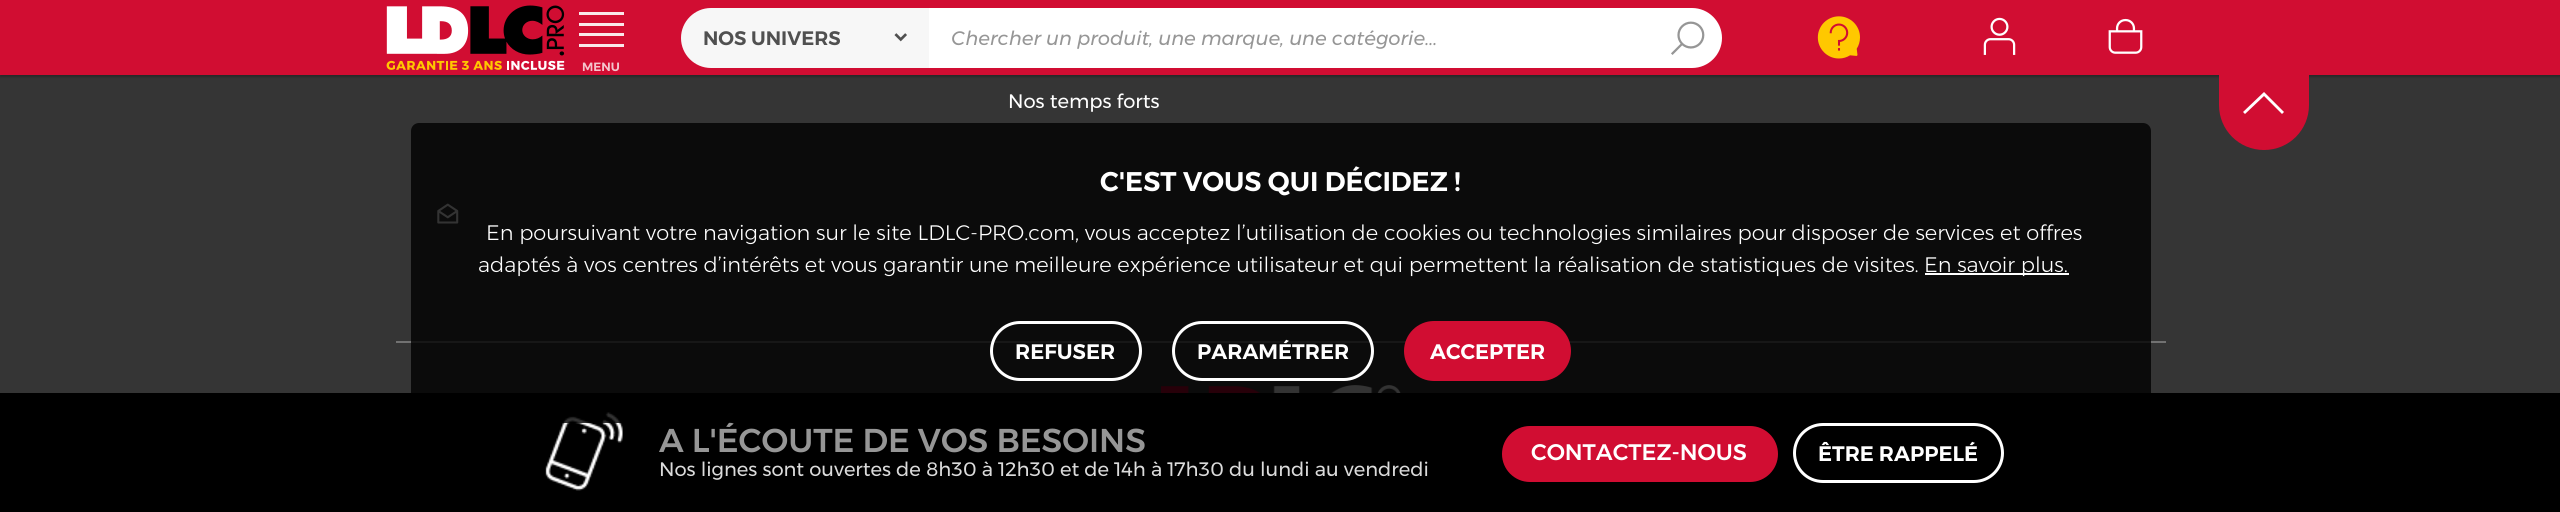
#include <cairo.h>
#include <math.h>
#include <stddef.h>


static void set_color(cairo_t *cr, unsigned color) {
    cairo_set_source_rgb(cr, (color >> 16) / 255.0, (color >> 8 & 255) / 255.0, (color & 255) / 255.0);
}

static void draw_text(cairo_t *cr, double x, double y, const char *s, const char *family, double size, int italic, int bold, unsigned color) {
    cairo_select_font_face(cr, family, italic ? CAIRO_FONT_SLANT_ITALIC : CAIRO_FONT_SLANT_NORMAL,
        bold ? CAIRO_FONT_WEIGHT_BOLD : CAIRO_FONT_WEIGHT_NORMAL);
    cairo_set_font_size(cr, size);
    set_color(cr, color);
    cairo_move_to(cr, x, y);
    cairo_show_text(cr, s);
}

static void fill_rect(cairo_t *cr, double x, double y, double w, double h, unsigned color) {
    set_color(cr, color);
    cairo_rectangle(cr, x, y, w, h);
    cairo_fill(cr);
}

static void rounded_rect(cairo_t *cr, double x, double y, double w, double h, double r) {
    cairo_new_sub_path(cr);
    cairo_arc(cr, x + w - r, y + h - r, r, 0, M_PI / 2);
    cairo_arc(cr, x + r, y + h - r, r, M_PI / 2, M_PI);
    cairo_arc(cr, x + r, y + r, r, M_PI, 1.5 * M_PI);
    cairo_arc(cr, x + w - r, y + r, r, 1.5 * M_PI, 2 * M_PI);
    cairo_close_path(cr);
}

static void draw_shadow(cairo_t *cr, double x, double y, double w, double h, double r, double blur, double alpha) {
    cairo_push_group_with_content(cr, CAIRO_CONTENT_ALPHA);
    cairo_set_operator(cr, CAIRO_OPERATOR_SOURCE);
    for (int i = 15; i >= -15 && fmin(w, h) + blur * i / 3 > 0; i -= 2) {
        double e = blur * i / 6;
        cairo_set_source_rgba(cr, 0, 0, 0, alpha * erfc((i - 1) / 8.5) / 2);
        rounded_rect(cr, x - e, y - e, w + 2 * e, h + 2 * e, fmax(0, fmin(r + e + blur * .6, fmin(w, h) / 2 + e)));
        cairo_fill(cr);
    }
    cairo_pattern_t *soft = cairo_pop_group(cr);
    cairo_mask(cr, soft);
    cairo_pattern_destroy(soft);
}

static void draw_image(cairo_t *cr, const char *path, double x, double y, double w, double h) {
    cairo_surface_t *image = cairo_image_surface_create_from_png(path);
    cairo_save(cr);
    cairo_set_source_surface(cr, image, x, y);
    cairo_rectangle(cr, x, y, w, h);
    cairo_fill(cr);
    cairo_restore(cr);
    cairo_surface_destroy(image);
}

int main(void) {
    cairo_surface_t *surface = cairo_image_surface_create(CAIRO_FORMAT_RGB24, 2560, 512);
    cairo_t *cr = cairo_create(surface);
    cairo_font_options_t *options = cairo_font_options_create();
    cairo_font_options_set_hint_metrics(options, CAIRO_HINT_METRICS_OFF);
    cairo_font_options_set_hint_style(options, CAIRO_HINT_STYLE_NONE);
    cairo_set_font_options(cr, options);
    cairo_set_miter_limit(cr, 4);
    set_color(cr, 0x353535);
    cairo_paint(cr);
    set_color(cr, 0x000000);
    draw_shadow(cr, 0, 2, 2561, 75, 0, 1, 0.25);
    fill_rect(cr, 0, 0, 2560, 75, 0xD10D32);
    draw_image(cr, "assets/img1.png", 386, 5, 179, 65);
    set_color(cr, 0xF7F7F7);
    cairo_new_path(cr);
    cairo_move_to(cr, 711, 8);
    cairo_line_to(cr, 929, 8);
    cairo_line_to(cr, 929, 68);
    cairo_line_to(cr, 711, 68);
    cairo_curve_to(cr, 694.5, 68, 681, 54.5, 681, 38);
    cairo_curve_to(cr, 681, 21.5, 694.5, 8, 711, 8);
    cairo_close_path(cr);
    cairo_fill(cr);
    draw_text(cr, 703, 45, "NOS UNIVERS", "Montserrat SemiBold", 19.5, 0, 0, 0x505050);
    draw_image(cr, "assets/img2.png", 894, 33, 13, 9);
    set_color(cr, 0xFFFFFF);
    cairo_new_path(cr);
    cairo_move_to(cr, 929, 8);
    cairo_line_to(cr, 1692, 8);
    cairo_curve_to(cr, 1708.5, 8, 1722, 21.5, 1722, 38);
    cairo_curve_to(cr, 1722, 54.5, 1708.5, 68, 1692, 68);
    cairo_line_to(cr, 929, 68);
    cairo_close_path(cr);
    cairo_fill(cr);
    draw_text(cr, 951, 45, "Chercher un produit, une marque, une catégorie...", "Montserrat", 19.5, 1, 0, 0x969696);
    draw_image(cr, "assets/img3.png", 1671, 21, 34, 34);
    draw_image(cr, "assets/img4.png", 1817, 16, 43, 43);
    draw_image(cr, "assets/img5.png", 1983, 17, 33, 38);
    draw_image(cr, "assets/img6.png", 2108, 18, 35, 36);
    fill_rect(cr, 579, 12, 45, 3, 0xFAE7EB);
    fill_rect(cr, 579, 44, 45, 3, 0xFAE7EB);
    fill_rect(cr, 579, 23, 45, 3, 0xFAE7EB);
    fill_rect(cr, 579, 33, 45, 3, 0xFAE7EB);
    draw_text(cr, 582, 71, "MENU", "Montserrat SemiBold", 12, 0, 0, 0xF4C3CC);
    set_color(cr, 0xD10D32);
    cairo_new_path(cr);
    cairo_move_to(cr, 2219, 75);
    cairo_line_to(cr, 2309, 75);
    cairo_line_to(cr, 2309, 105);
    cairo_curve_to(cr, 2309, 130, 2289, 150, 2264, 150);
    cairo_curve_to(cr, 2239, 150, 2219, 130, 2219, 105);
    cairo_close_path(cr);
    cairo_fill(cr);
    set_color(cr, 0xFFFFFF);
    cairo_new_path(cr);
    cairo_move_to(cr, 2282, 114);
    cairo_line_to(cr, 2264, 96);
    cairo_line_to(cr, 2245, 114);
    cairo_line_to(cr, 2243, 112);
    cairo_line_to(cr, 2264, 92);
    cairo_line_to(cr, 2284, 112);
    cairo_close_path(cr);
    cairo_fill(cr);
    fill_rect(cr, 396, 341, 1770, 2, 0x727272);
    draw_text(cr, 1008, 108, "Nos temps forts", "Montserrat", 19.5, 0, 0, 0xFFFFFF);
    draw_image(cr, "assets/img7.png", 437, 203, 22, 21);
    draw_image(cr, "assets/img8.png", 1161, 385, 240, 8);
    fill_rect(cr, 0, 393, 2560, 119, 0x000000);
    draw_image(cr, "assets/img9.png", 545, 412, 78, 79);
    draw_text(cr, 659, 452, "A L'ÉCOUTE DE VOS BESOINS", "Montserrat Medium", 33, 0, 0, 0x969696);
    draw_text(cr, 659, 476, "Nos lignes sont ouvertes de 8h30 à 12h30 et de 14h à 17h30 du lundi au vendredi", "Montserrat", 19.5, 0, 0, 0xDBDBDB);
    set_color(cr, 0xD10D32);
    rounded_rect(cr, 1502, 426, 276, 56, 28);
    cairo_fill(cr);
    draw_text(cr, 1531, 460, "CONTACTEZ-NOUS", "Montserrat Medium", 22.5, 0, 0, 0xFFFFFF);
    rounded_rect(cr, 1794.5, 424.5, 208, 57, 28.5);
    cairo_set_line_width(cr, 3);
    cairo_stroke(cr);
    draw_text(cr, 1818, 461, "ÊTRE RAPPELÉ", "Montserrat SemiBold", 21, 0, 0, 0xFFFFFF);
    cairo_set_source_rgba(cr, 0, 0, 0, 0.8);
    rounded_rect(cr, 411, 123, 1740, 300, 8);
    cairo_fill(cr);
    draw_text(cr, 1100, 191, "C'EST VOUS QUI DÉCIDEZ !", "Montserrat SemiBold", 27, 0, 0, 0xFFFFFF);
    draw_text(cr, 486, 240, "En poursuivant votre navigation sur le site LDLC-PRO.com, vous acceptez l’utilisation de cookies ou technologies similaires pour disposer de services et offres", "Montserrat Light", 21, 0, 0, 0xFFFFFF);
    draw_text(cr, 478, 272, "adaptés à vos centres d’intérêts et vous garantir une meilleure expérience utilisateur et qui permettent la réalisation de statistiques de visites.", "Montserrat Light", 21, 0, 0, 0xFFFFFF);
    fill_rect(cr, 1925, 273, 144, 2, 0xFFFFFF);
    draw_text(cr, 1924, 272, "En savoir plus.", "Montserrat Light", 21, 0, 0, 0xFFFFFF);
    rounded_rect(cr, 991.5, 322.5, 149, 57, 28.5);
    cairo_stroke(cr);
    draw_text(cr, 1015, 359, "REFUSER", "Montserrat SemiBold", 21, 0, 0, 0xFFFFFF);
    rounded_rect(cr, 1173.5, 322.5, 199, 57, 28.5);
    cairo_stroke(cr);
    draw_text(cr, 1197, 359, "PARAMÉTRER", "Montserrat SemiBold", 21, 0, 0, 0xFFFFFF);
    set_color(cr, 0xD10D32);
    rounded_rect(cr, 1404, 321, 167, 60, 30);
    cairo_fill(cr);
    draw_text(cr, 1430, 359, "ACCEPTER", "Montserrat SemiBold", 21, 0, 0, 0xFFFFFF);
    cairo_surface_write_to_png(surface, "output.png");
    cairo_font_options_destroy(options);
    cairo_destroy(cr);
    cairo_surface_destroy(surface);
    return 0;
}
